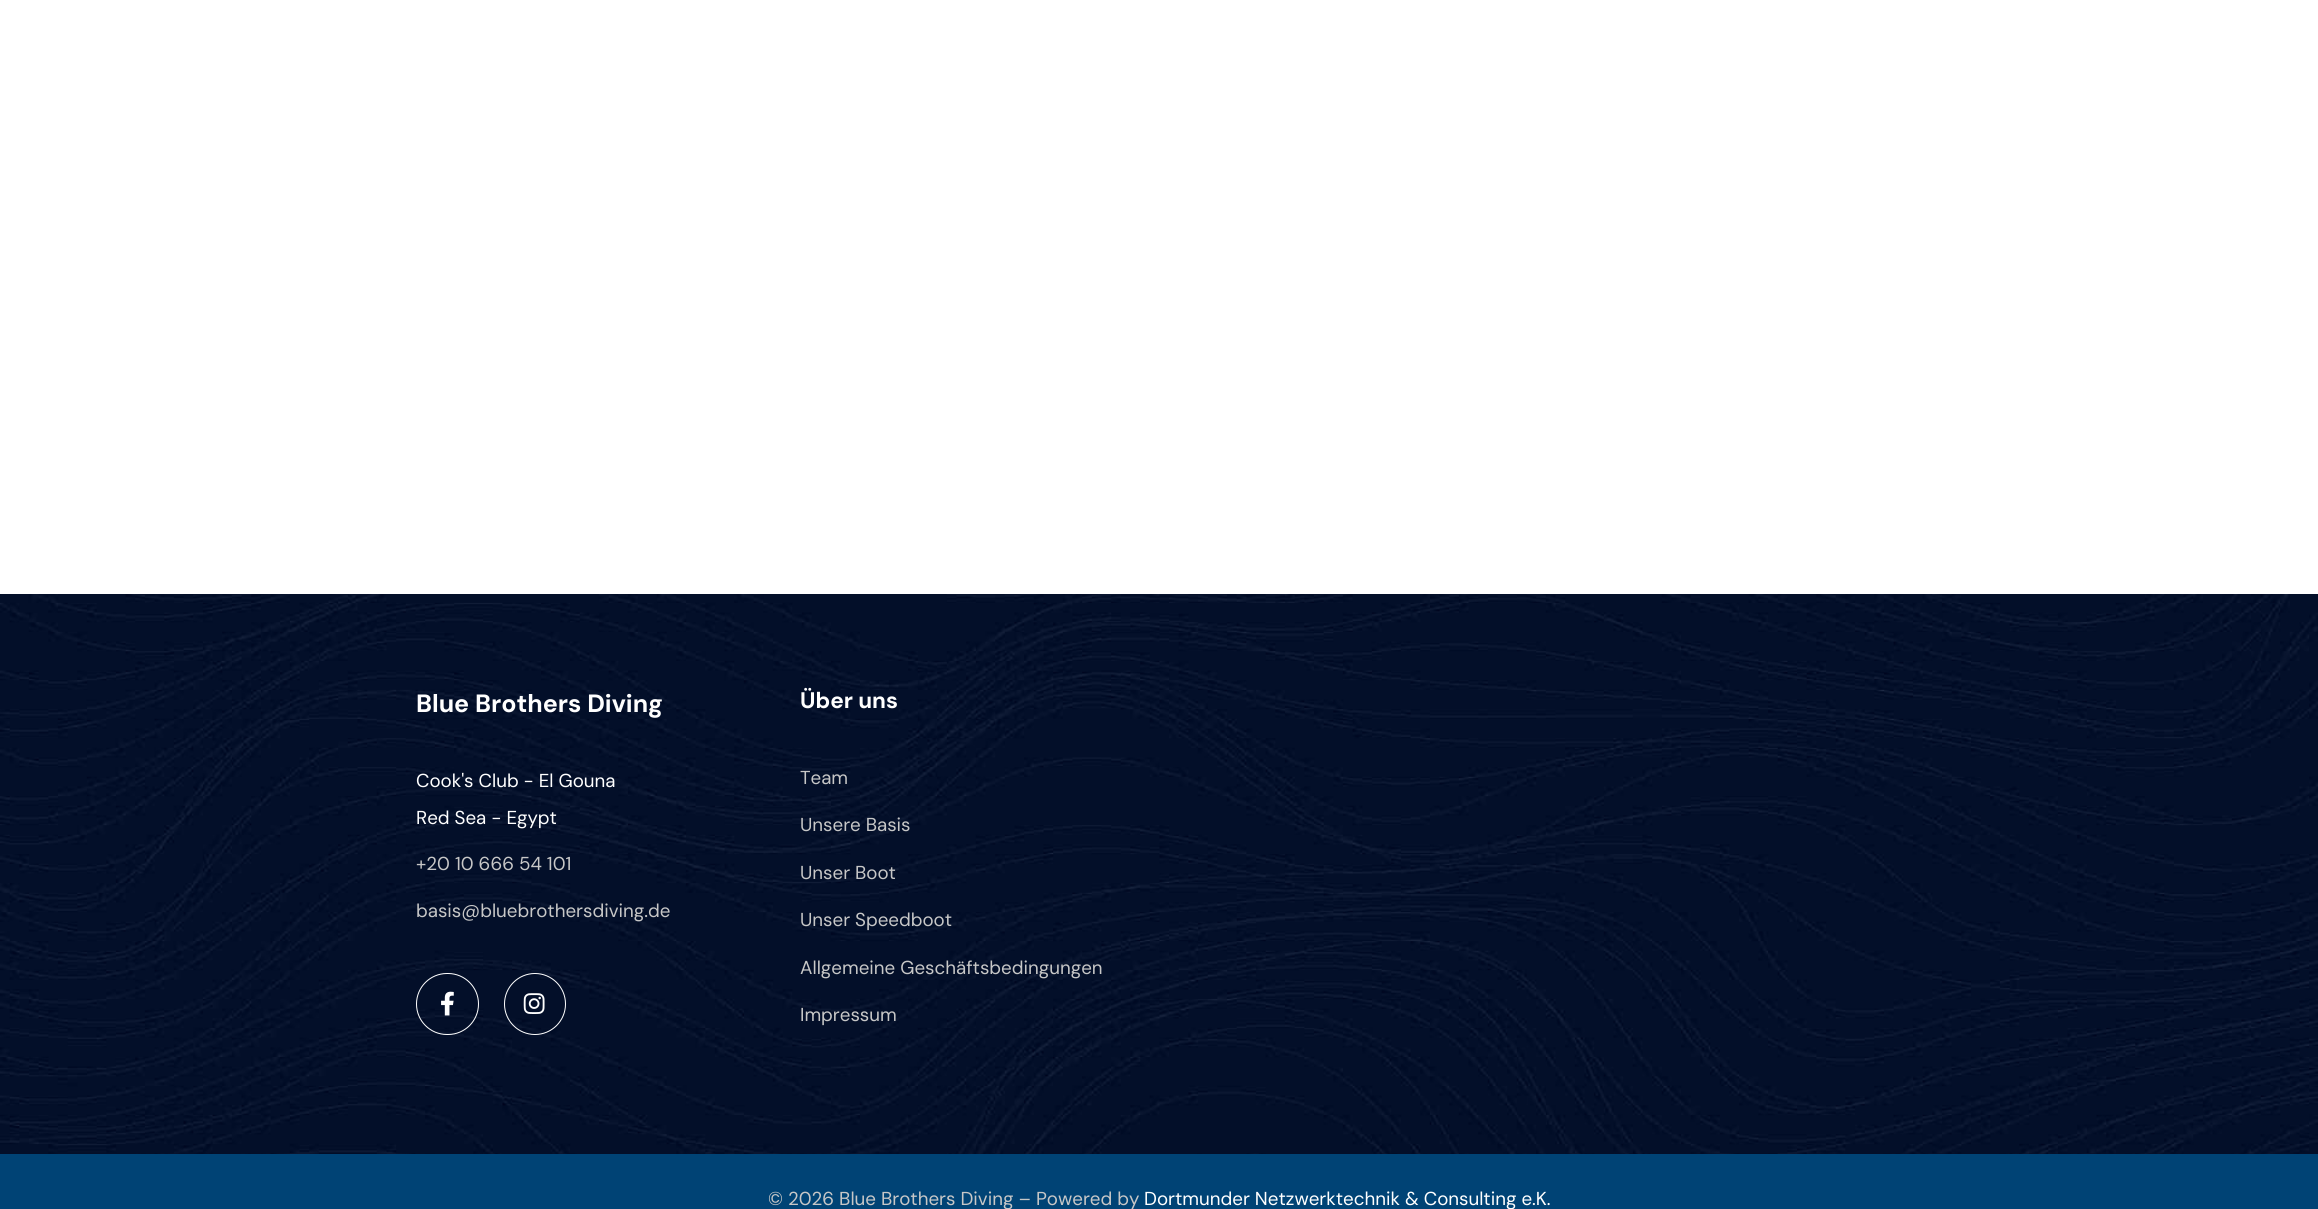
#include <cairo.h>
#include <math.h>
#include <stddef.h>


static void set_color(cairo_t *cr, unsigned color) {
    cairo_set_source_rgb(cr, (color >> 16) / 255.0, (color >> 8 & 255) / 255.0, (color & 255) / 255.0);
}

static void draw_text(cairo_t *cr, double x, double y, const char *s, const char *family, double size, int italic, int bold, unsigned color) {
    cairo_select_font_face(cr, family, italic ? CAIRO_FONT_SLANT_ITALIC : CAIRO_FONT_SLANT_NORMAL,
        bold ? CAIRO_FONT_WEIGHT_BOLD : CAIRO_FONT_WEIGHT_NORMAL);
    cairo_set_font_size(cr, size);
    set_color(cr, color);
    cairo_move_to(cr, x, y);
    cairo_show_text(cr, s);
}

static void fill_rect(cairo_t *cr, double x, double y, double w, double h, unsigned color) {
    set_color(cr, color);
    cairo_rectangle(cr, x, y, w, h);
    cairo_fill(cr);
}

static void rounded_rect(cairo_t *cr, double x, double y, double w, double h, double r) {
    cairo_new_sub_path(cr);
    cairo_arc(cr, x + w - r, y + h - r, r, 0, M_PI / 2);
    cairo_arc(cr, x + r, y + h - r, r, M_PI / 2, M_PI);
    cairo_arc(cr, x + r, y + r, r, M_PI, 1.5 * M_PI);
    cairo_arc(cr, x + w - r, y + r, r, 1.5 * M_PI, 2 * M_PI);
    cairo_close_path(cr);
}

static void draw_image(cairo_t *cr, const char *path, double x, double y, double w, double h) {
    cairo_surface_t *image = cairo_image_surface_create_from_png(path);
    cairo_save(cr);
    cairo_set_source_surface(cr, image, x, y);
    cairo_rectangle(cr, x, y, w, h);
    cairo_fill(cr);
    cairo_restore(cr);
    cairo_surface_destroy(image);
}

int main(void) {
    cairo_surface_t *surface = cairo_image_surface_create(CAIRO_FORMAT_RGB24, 2318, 1209);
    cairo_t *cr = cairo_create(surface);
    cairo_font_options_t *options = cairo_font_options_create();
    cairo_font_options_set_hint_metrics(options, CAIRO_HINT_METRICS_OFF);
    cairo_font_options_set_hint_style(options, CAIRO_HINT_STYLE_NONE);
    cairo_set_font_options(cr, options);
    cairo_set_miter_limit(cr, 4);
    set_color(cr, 0xFFFFFF);
    cairo_paint(cr);
    draw_image(cr, "assets/img1.png", 0, 594, 2318, 560);
    draw_text(cr, 416, 712, "Blue Brothers Diving", "DM Sans", 25, 0, 1, 0xFFFFFF);
    draw_text(cr, 416, 787, "Cook's Club - El Gouna", "DM Sans", 18.75, 0, 0, 0xFFFFFF);
    draw_text(cr, 416, 824, "Red Sea - Egypt", "DM Sans", 18.75, 0, 0, 0xFFFFFF);
    draw_text(cr, 416, 870, "+20 10 666 54 101", "DM Sans", 18.75, 0, 0, 0xC7C7C7);
    draw_text(cr, 416, 917, "basis@bluebrothersdiving.de", "DM Sans", 18.75, 0, 0, 0xC7C7C7);
    rounded_rect(cr, 416.5, 973.5, 62, 61, 30.5);
    set_color(cr, 0xFFFFFF);
    cairo_set_line_width(cr, 1);
    cairo_stroke(cr);
    draw_image(cr, "assets/img2.png", 441, 991, 13, 25);
    cairo_arc(cr, 535, 1004, 30.5, 0, 2 * M_PI);
    cairo_stroke(cr);
    draw_image(cr, "assets/img3.png", 523, 993, 22, 21);
    draw_text(cr, 800, 708, "Über uns", "DM Sans", 22.5, 0, 1, 0xFFFFFF);
    draw_text(cr, 800, 784, "Team", "DM Sans", 18.75, 0, 0, 0xC7C7C7);
    draw_text(cr, 800, 831, "Unsere Basis", "DM Sans", 18.75, 0, 0, 0xC7C7C7);
    draw_text(cr, 800, 879, "Unser Boot", "DM Sans", 18.75, 0, 0, 0xC7C7C7);
    draw_text(cr, 800, 926, "Unser Speedboot", "DM Sans", 18.75, 0, 0, 0xC7C7C7);
    draw_text(cr, 800, 974, "Allgemeine Geschäftsbedingungen", "DM Sans", 18.75, 0, 0, 0xC7C7C7);
    draw_text(cr, 800, 1021, "Impressum", "DM Sans", 18.75, 0, 0, 0xC7C7C7);
    fill_rect(cr, 0, 1154, 2318, 55, 0x004375);
    draw_text(cr, 768, 1205, "© 2026 Blue Brothers Diving – Powered by", "DM Sans", 18.75, 0, 0, 0xC7C7C7);
    draw_text(cr, 1144, 1205, "Dortmunder Netzwerktechnik & Consulting e.K.", "DM Sans", 18.75, 0, 0, 0xFFFFFF);
    cairo_surface_write_to_png(surface, "output.png");
    cairo_font_options_destroy(options);
    cairo_destroy(cr);
    cairo_surface_destroy(surface);
    return 0;
}
